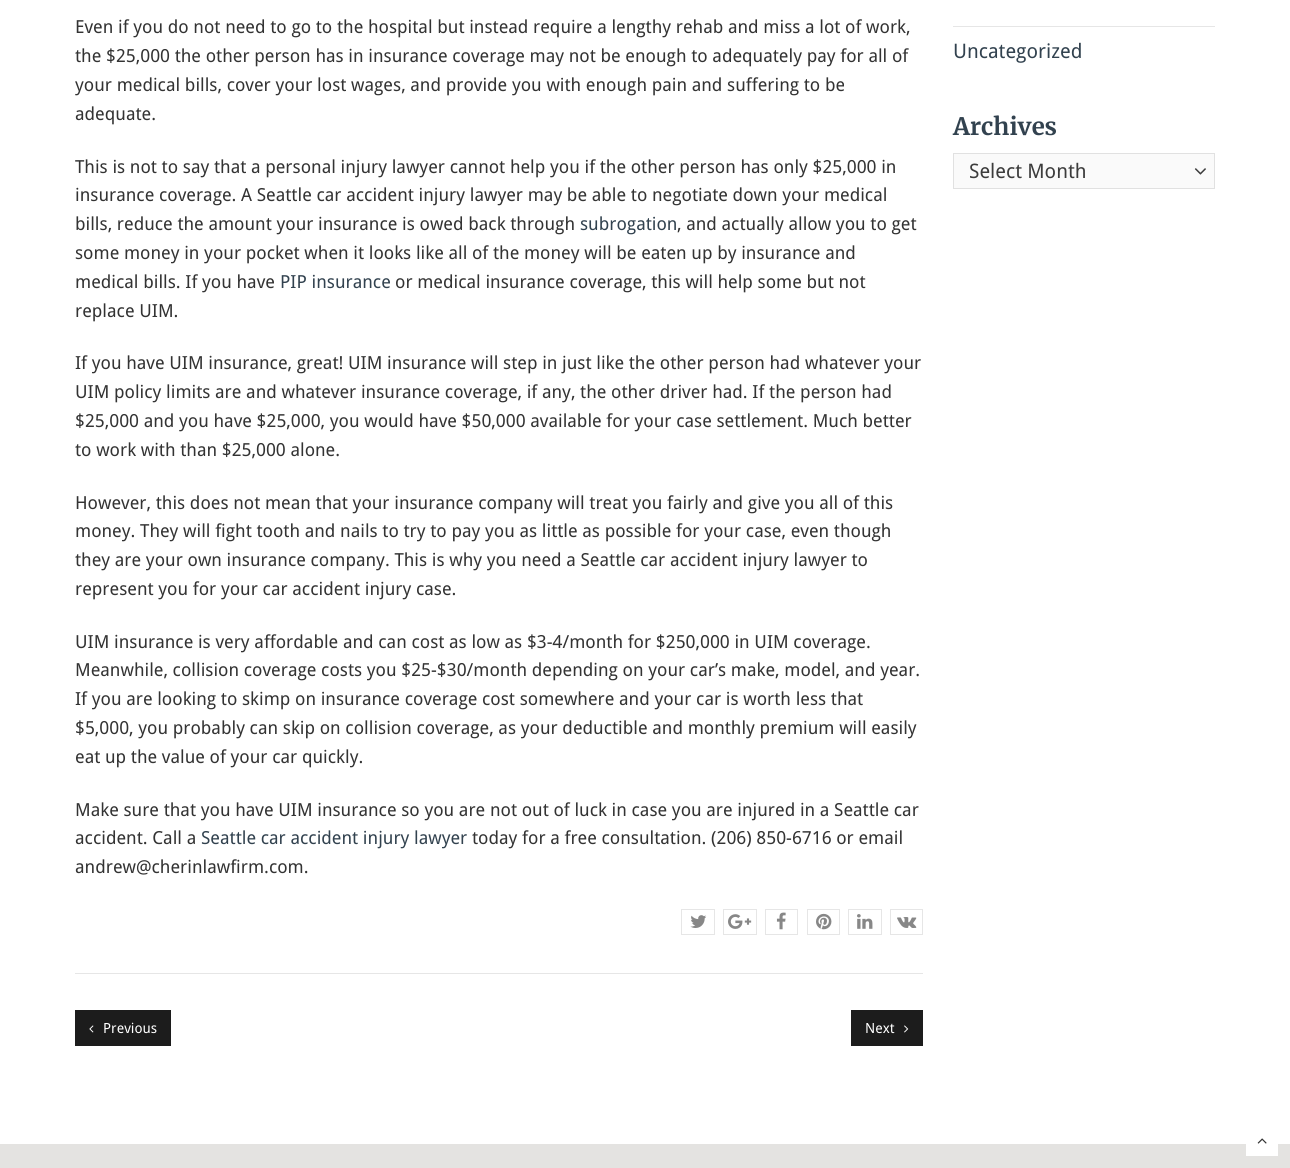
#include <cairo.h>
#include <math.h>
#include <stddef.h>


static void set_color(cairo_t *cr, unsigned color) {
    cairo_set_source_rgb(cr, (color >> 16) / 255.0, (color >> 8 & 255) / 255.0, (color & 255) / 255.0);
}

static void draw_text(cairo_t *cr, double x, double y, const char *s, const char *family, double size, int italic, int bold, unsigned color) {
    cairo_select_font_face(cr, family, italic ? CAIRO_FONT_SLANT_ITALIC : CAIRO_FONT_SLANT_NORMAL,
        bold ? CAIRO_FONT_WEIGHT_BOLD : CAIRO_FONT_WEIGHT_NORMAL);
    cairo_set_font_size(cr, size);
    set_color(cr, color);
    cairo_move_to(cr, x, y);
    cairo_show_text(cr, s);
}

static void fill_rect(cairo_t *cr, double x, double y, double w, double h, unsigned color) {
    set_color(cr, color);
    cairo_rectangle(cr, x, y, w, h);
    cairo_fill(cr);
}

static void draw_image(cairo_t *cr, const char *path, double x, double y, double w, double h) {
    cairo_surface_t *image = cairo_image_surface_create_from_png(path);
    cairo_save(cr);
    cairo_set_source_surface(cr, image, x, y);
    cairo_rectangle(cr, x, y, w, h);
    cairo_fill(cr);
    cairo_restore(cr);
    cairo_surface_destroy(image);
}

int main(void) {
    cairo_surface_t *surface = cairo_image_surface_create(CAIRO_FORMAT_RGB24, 1290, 1168);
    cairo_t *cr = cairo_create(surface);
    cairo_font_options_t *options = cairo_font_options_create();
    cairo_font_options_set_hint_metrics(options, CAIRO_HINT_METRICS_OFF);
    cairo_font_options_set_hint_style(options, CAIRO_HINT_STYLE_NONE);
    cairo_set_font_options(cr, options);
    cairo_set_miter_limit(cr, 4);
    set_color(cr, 0xFFFFFF);
    cairo_paint(cr);
    draw_text(cr, 75, 33, "Even if you do not need to go to the hospital but instead require a lengthy rehab and miss a lot of work,", "Droid Sans", 18, 0, 0, 0x333333);
    draw_text(cr, 75, 62, "the $25,000 the other person has in insurance coverage may not be enough to adequately pay for all of", "Droid Sans", 18, 0, 0, 0x333333);
    draw_text(cr, 75, 91, "your medical bills, cover your lost wages, and provide you with enough pain and suffering to be", "Droid Sans", 18, 0, 0, 0x333333);
    draw_text(cr, 75, 120, "adequate.", "Droid Sans", 18, 0, 0, 0x333333);
    draw_text(cr, 75, 173, "This is not to say that a personal injury lawyer cannot help you if the other person has only $25,000 in", "Droid Sans", 18, 0, 0, 0x333333);
    draw_text(cr, 75, 201, "insurance coverage. A Seattle car accident injury lawyer may be able to negotiate down your medical", "Droid Sans", 18, 0, 0, 0x333333);
    draw_text(cr, 75, 230, "bills, reduce the amount your insurance is owed back through", "Droid Sans", 18, 0, 0, 0x333333);
    draw_text(cr, 580, 230, "subrogation", "Droid Sans", 18, 0, 0, 0x32424F);
    draw_text(cr, 677, 230, ", and actually allow you to get", "Droid Sans", 18, 0, 0, 0x333333);
    draw_text(cr, 75, 259, "some money in your pocket when it looks like all of the money will be eaten up by insurance and", "Droid Sans", 18, 0, 0, 0x333333);
    draw_text(cr, 75, 288, "medical bills. If you have", "Droid Sans", 18, 0, 0, 0x333333);
    draw_text(cr, 280, 288, "PIP insurance", "Droid Sans", 18, 0, 0, 0x32424F);
    draw_text(cr, 395, 288, "or medical insurance coverage, this will help some but not", "Droid Sans", 18, 0, 0, 0x333333);
    draw_text(cr, 75, 317, "replace UIM.", "Droid Sans", 18, 0, 0, 0x333333);
    draw_text(cr, 75, 369, "If you have UIM insurance, great! UIM insurance will step in just like the other person had whatever your", "Droid Sans", 18, 0, 0, 0x333333);
    draw_text(cr, 75, 398, "UIM policy limits are and whatever insurance coverage, if any, the other driver had. If the person had", "Droid Sans", 18, 0, 0, 0x333333);
    draw_text(cr, 75, 427, "$25,000 and you have $25,000, you would have $50,000 available for your case settlement. Much better", "Droid Sans", 18, 0, 0, 0x333333);
    draw_text(cr, 75, 456, "to work with than $25,000 alone.", "Droid Sans", 18, 0, 0, 0x333333);
    draw_text(cr, 75, 509, "However, this does not mean that your insurance company will treat you fairly and give you all of this", "Droid Sans", 18, 0, 0, 0x333333);
    draw_text(cr, 75, 537, "money. They will fight tooth and nails to try to pay you as little as possible for your case, even though", "Droid Sans", 18, 0, 0, 0x333333);
    draw_text(cr, 75, 566, "they are your own insurance company. This is why you need a Seattle car accident injury lawyer to", "Droid Sans", 18, 0, 0, 0x333333);
    draw_text(cr, 75, 595, "represent you for your car accident injury case.", "Droid Sans", 18, 0, 0, 0x333333);
    draw_text(cr, 75, 648, "UIM insurance is very affordable and can cost as low as $3-4/month for $250,000 in UIM coverage.", "Droid Sans", 18, 0, 0, 0x333333);
    draw_text(cr, 75, 676, "Meanwhile, collision coverage costs you $25-$30/month depending on your car’s make, model, and year.", "Droid Sans", 18, 0, 0, 0x333333);
    draw_text(cr, 75, 705, "If you are looking to skimp on insurance coverage cost somewhere and your car is worth less that", "Droid Sans", 18, 0, 0, 0x333333);
    draw_text(cr, 75, 734, "$5,000, you probably can skip on collision coverage, as your deductible and monthly premium will easily", "Droid Sans", 18, 0, 0, 0x333333);
    draw_text(cr, 75, 763, "eat up the value of your car quickly.", "Droid Sans", 18, 0, 0, 0x333333);
    draw_text(cr, 75, 816, "Make sure that you have UIM insurance so you are not out of luck in case you are injured in a Seattle car", "Droid Sans", 18, 0, 0, 0x333333);
    draw_text(cr, 75, 844, "accident. Call a", "Droid Sans", 18, 0, 0, 0x333333);
    draw_text(cr, 201, 844, "Seattle car accident injury lawyer", "Droid Sans", 18, 0, 0, 0x32424F);
    draw_text(cr, 472, 844, "today for a free consultation. (206) 850-6716 or email", "Droid Sans", 18, 0, 0, 0x333333);
    draw_text(cr, 75, 873, "andrew@cherinlawfirm.com.", "Droid Sans", 18, 0, 0, 0x333333);
    cairo_rectangle(cr, 681.5, 909.5, 33, 25);
    set_color(cr, 0xE6E6E6);
    cairo_set_line_width(cr, 1);
    cairo_stroke(cr);
    draw_image(cr, "assets/img1.png", 690, 915, 17, 13);
    cairo_rectangle(cr, 723.5, 909.5, 33, 25);
    cairo_stroke(cr);
    draw_image(cr, "assets/img2.png", 728, 914, 24, 15);
    cairo_rectangle(cr, 765.5, 909.5, 32, 25);
    cairo_stroke(cr);
    draw_image(cr, "assets/img3.png", 776, 912, 10, 18);
    cairo_rectangle(cr, 807.5, 909.5, 32, 25);
    cairo_stroke(cr);
    draw_image(cr, "assets/img4.png", 816, 913, 16, 17);
    cairo_rectangle(cr, 848.5, 909.5, 33, 25);
    cairo_stroke(cr);
    draw_image(cr, "assets/img5.png", 857, 914, 16, 15);
    cairo_rectangle(cr, 890.5, 909.5, 32, 25);
    cairo_stroke(cr);
    draw_image(cr, "assets/img6.png", 897, 917, 20, 11);
    fill_rect(cr, 75, 973, 848, 1, 0xE6E6E6);
    fill_rect(cr, 75, 1010, 96, 36, 0x1C1C1C);
    draw_image(cr, "assets/img7.png", 89, 1025, 5, 8);
    draw_text(cr, 103, 1033, "Previous", "Droid Sans", 14, 0, 0, 0xFFFFFF);
    fill_rect(cr, 851, 1010, 72, 36, 0x1C1C1C);
    draw_text(cr, 865, 1033, "Next", "Droid Sans", 14, 0, 0, 0xFFFFFF);
    draw_image(cr, "assets/img8.png", 904, 1025, 5, 8);
    fill_rect(cr, 953, 26, 262, 1, 0xE6E6E6);
    draw_text(cr, 953, 58, "Uncategorized", "Droid Sans", 20, 0, 0, 0x32424F);
    draw_text(cr, 953, 135, "Archives", "Merriweather", 24, 0, 1, 0x32424F);
    set_color(cr, 0xFAFAFA);
    cairo_rectangle(cr, 953.5, 153.5, 261, 35);
    cairo_fill_preserve(cr);
    set_color(cr, 0xE1E1E1);
    cairo_stroke(cr);
    draw_text(cr, 969, 178, "Select Month", "Droid Sans", 20, 0, 0, 0x3C3C3C);
    draw_image(cr, "assets/img9.png", 1194, 168, 12, 7);
    fill_rect(cr, 0, 1144, 1290, 24, 0xE4E3E1);
    fill_rect(cr, 1246, 1144, 32, 12, 0xFFFFFF);
    draw_image(cr, "assets/img10.png", 1257, 1138, 10, 6);
    cairo_surface_write_to_png(surface, "output.png");
    cairo_font_options_destroy(options);
    cairo_destroy(cr);
    cairo_surface_destroy(surface);
    return 0;
}
